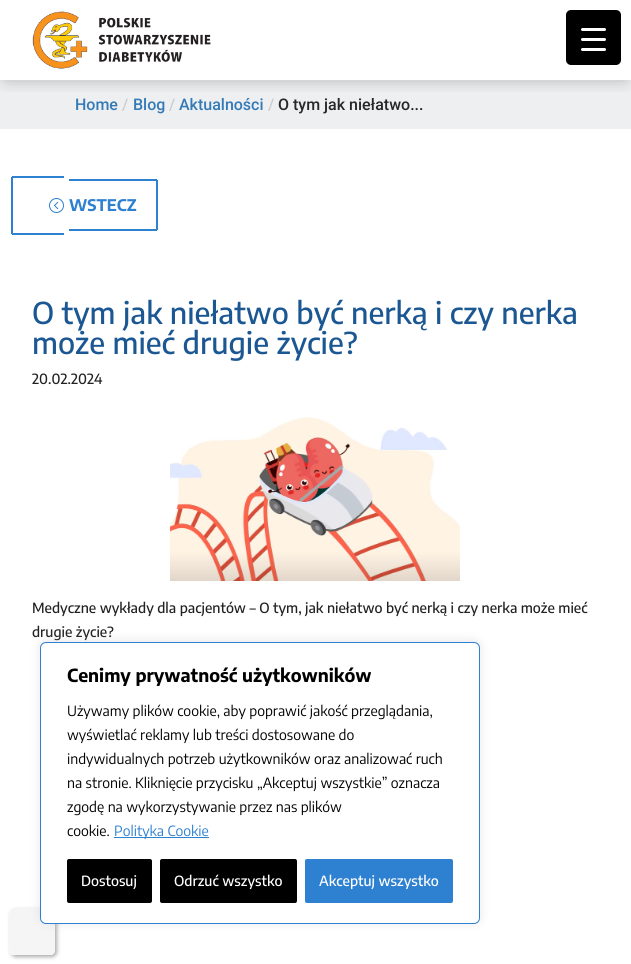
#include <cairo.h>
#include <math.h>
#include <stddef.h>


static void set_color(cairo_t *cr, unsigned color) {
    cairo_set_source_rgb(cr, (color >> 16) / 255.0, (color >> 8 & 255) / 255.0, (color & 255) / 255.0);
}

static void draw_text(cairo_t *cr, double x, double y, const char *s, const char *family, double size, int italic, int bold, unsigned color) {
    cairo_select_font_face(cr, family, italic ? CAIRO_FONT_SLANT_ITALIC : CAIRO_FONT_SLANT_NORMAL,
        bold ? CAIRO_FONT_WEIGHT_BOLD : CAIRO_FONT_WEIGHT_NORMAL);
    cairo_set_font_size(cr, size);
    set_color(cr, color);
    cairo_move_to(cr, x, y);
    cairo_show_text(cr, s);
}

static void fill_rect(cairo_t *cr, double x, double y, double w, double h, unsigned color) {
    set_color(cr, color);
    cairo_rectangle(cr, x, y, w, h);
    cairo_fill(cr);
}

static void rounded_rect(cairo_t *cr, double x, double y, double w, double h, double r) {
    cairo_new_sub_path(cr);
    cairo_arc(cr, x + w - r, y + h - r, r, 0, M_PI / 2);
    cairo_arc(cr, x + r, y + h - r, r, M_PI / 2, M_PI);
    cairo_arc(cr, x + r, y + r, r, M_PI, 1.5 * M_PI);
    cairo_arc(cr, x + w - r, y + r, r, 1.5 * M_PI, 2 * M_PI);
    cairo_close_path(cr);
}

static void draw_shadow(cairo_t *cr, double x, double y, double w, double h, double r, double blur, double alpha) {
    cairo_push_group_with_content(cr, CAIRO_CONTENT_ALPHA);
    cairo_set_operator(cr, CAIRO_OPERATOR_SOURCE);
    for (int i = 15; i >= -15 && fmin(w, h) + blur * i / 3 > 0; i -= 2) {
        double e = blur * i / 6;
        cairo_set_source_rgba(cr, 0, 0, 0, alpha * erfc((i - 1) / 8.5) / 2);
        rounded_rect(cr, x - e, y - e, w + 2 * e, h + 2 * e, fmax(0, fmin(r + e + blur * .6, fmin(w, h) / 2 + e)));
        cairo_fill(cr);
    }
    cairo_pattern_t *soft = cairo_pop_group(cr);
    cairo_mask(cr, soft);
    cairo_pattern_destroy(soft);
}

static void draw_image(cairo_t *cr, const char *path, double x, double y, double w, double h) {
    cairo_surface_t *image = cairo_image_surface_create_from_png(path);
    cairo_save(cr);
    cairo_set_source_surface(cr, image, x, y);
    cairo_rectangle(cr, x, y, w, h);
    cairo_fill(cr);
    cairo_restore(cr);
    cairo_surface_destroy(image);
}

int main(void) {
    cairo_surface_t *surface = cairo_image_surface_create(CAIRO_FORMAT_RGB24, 631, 964);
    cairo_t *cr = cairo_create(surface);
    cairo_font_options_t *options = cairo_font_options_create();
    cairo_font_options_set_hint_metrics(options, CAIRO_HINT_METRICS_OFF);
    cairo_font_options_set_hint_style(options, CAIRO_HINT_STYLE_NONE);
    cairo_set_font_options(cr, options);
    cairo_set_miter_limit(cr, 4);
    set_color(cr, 0xFFFFFF);
    cairo_paint(cr);
    fill_rect(cr, 0, 80, 631, 49, 0xEDEFF0);
    cairo_save(cr);
    cairo_rectangle(cr, 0, 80, 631, 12);
    cairo_clip(cr);
    set_color(cr, 0x000000);
    draw_shadow(cr, 6, 10, 619, 68, 0, 9, 0.3);
    cairo_restore(cr);
    set_color(cr, 0x000000);
    rounded_rect(cr, 566, 10, 55, 55, 5);
    cairo_fill(cr);
    set_color(cr, 0xFFFFFF);
    rounded_rect(cr, 581, 38, 25, 3, 1.5);
    cairo_fill(cr);
    rounded_rect(cr, 581, 28, 25, 3, 1.5);
    cairo_fill(cr);
    rounded_rect(cr, 581, 48, 25, 3, 1.5);
    cairo_fill(cr);
    draw_image(cr, "assets/img1.png", 32, 11, 179, 58);
    draw_text(cr, 75, 110, "Home", "Roboto Medium", 16, 0, 0, 0x337AB7);
    draw_text(cr, 122, 110, "/", "Roboto Medium", 16, 0, 0, 0xCCCCCC);
    draw_text(cr, 133, 110, "Blog", "Roboto Medium", 16, 0, 0, 0x337AB7);
    draw_text(cr, 169, 110, "/", "Roboto Medium", 16, 0, 0, 0xCCCCCC);
    draw_text(cr, 179, 110, "Aktualności", "Roboto Medium", 16, 0, 0, 0x337AB7);
    draw_text(cr, 268, 110, "/", "Roboto Medium", 16, 0, 0, 0xCCCCCC);
    draw_text(cr, 278, 110, "O tym jak niełatwo...", "Roboto Medium", 16, 0, 0, 0x27272A);
    fill_rect(cr, 12, 176, 52, 2, 0x2E80D1);
    fill_rect(cr, 12, 233, 52, 2, 0x2E80D1);
    fill_rect(cr, 11, 177, 2, 57, 0x2E80D1);
    fill_rect(cr, 69, 179, 88, 2, 0x2E80D1);
    fill_rect(cr, 156, 180, 2, 50, 0x2E80D1);
    fill_rect(cr, 69, 229, 88, 2, 0x2E80D1);
    draw_image(cr, "assets/img2.png", 49, 198, 15, 15);
    draw_text(cr, 69, 211, "WSTECZ", "Encode Sans Condensed", 16, 0, 1, 0x2E80D1);
    draw_text(cr, 32, 324, "O tym jak niełatwo być nerką i czy nerka", "Encode Sans Condensed Medium", 30, 0, 0, 0x1B5792);
    draw_text(cr, 32, 354, "może mieć drugie życie?", "Encode Sans Condensed Medium", 30, 0, 0, 0x1B5792);
    draw_text(cr, 32, 384, "20.02.2024", "Encode Sans Condensed Medium", 14, 0, 0, 0x222222);
    draw_image(cr, "assets/img3.png", 170, 417, 290, 164);
    draw_text(cr, 32, 613, "Medyczne wykłady dla pacjentów – O tym, jak niełatwo być nerką i czy nerka może mieć", "Encode Sans Condensed Medium", 14, 0, 0, 0x222222);
    draw_text(cr, 32, 637, "drugie życie?", "Encode Sans Condensed Medium", 14, 0, 0, 0x222222);
    cairo_save(cr);
    cairo_set_fill_rule(cr, CAIRO_FILL_RULE_EVEN_ODD);
    cairo_new_path(cr);
    cairo_move_to(cr, 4, 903);
    cairo_line_to(cr, 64, 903);
    cairo_line_to(cr, 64, 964);
    cairo_line_to(cr, 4, 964);
    cairo_close_path(cr);
    cairo_move_to(cr, 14, 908);
    cairo_line_to(cr, 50, 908);
    cairo_curve_to(cr, 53, 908, 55, 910, 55, 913);
    cairo_line_to(cr, 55, 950);
    cairo_curve_to(cr, 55, 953, 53, 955, 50, 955);
    cairo_line_to(cr, 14, 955);
    cairo_curve_to(cr, 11, 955, 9, 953, 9, 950);
    cairo_line_to(cr, 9, 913);
    cairo_curve_to(cr, 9, 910, 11, 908, 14, 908);
    cairo_close_path(cr);
    cairo_clip(cr);
    set_color(cr, 0x4D4D4D);
    draw_shadow(cr, 11, 910, 46, 47, 5, 2, 0.47);
    cairo_restore(cr);
    cairo_set_source_rgba(cr, 0.961, 0.961, 0.961, 0.99);
    rounded_rect(cr, 9, 908, 46, 47, 5);
    cairo_fill(cr);
    set_color(cr, 0xACABAB);
    draw_shadow(cr, 40, 641, 440, 282, 6, 5, 0.3);
    set_color(cr, 0xFFFFFF);
    rounded_rect(cr, 40.5, 642.5, 439, 281, 5.5);
    cairo_fill_preserve(cr);
    set_color(cr, 0x2E80D1);
    cairo_set_line_width(cr, 1);
    cairo_stroke(cr);
    draw_text(cr, 67, 682, "Cenimy prywatność użytkowników", "Encode Sans Condensed", 18, 0, 1, 0x000000);
    draw_text(cr, 67, 716, "Używamy plików cookie, aby poprawić jakość przeglądania,", "Encode Sans Condensed", 14, 0, 0, 0x000000);
    draw_text(cr, 67, 740, "wyświetlać reklamy lub treści dostosowane do", "Encode Sans Condensed", 14, 0, 0, 0x000000);
    draw_text(cr, 67, 764, "indywidualnych potrzeb użytkowników oraz analizować ruch", "Encode Sans Condensed", 14, 0, 0, 0x000000);
    draw_text(cr, 67, 788, "na stronie. Kliknięcie przycisku „Akceptuj wszystkie” oznacza", "Encode Sans Condensed", 14, 0, 0, 0x000000);
    draw_text(cr, 67, 812, "zgodę na wykorzystywanie przez nas plików", "Encode Sans Condensed", 14, 0, 0, 0x000000);
    draw_text(cr, 67, 836, "cookie.", "Encode Sans Condensed", 14, 0, 0, 0x000000);
    fill_rect(cr, 114, 837, 95, 1, 0x2E80D1);
    draw_text(cr, 114, 836, "Polityka Cookie", "Encode Sans Condensed", 14, 0, 0, 0x2E80D1);
    set_color(cr, 0x000000);
    rounded_rect(cr, 68, 860, 83, 42, 1);
    cairo_fill_preserve(cr);
    cairo_set_line_width(cr, 2);
    cairo_stroke(cr);
    draw_text(cr, 81, 886, "Dostosuj", "Encode Sans Condensed Medium", 14, 0, 0, 0xFFFFFF);
    set_color(cr, 0x000000);
    rounded_rect(cr, 161, 860, 135, 42, 1);
    cairo_fill_preserve(cr);
    cairo_stroke(cr);
    draw_text(cr, 174, 886, "Odrzuć wszystko", "Encode Sans Condensed Medium", 14, 0, 0, 0xFFFFFF);
    set_color(cr, 0x2E80D1);
    rounded_rect(cr, 306, 860, 146, 42, 1);
    cairo_fill_preserve(cr);
    cairo_stroke(cr);
    draw_text(cr, 319, 886, "Akceptuj wszystko", "Encode Sans Condensed Medium", 14, 0, 0, 0xFFFFFF);
    cairo_surface_write_to_png(surface, "output.png");
    cairo_font_options_destroy(options);
    cairo_destroy(cr);
    cairo_surface_destroy(surface);
    return 0;
}
